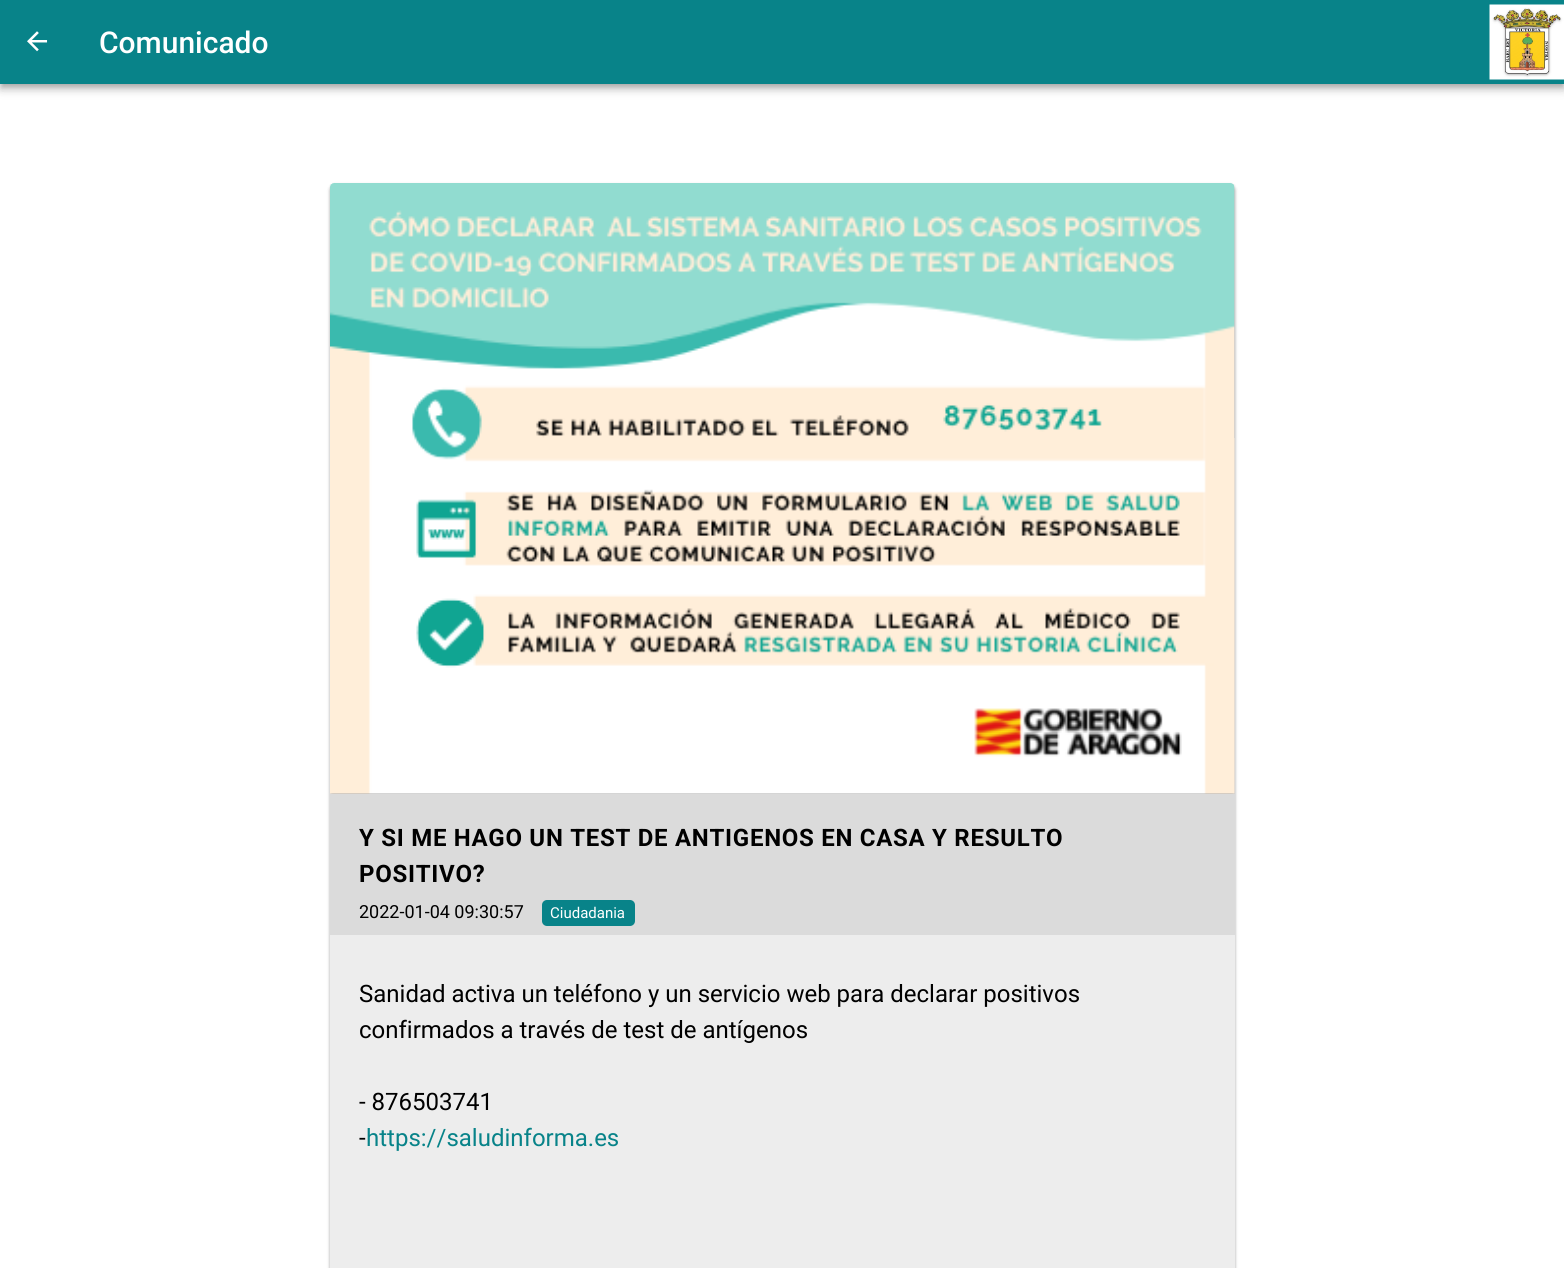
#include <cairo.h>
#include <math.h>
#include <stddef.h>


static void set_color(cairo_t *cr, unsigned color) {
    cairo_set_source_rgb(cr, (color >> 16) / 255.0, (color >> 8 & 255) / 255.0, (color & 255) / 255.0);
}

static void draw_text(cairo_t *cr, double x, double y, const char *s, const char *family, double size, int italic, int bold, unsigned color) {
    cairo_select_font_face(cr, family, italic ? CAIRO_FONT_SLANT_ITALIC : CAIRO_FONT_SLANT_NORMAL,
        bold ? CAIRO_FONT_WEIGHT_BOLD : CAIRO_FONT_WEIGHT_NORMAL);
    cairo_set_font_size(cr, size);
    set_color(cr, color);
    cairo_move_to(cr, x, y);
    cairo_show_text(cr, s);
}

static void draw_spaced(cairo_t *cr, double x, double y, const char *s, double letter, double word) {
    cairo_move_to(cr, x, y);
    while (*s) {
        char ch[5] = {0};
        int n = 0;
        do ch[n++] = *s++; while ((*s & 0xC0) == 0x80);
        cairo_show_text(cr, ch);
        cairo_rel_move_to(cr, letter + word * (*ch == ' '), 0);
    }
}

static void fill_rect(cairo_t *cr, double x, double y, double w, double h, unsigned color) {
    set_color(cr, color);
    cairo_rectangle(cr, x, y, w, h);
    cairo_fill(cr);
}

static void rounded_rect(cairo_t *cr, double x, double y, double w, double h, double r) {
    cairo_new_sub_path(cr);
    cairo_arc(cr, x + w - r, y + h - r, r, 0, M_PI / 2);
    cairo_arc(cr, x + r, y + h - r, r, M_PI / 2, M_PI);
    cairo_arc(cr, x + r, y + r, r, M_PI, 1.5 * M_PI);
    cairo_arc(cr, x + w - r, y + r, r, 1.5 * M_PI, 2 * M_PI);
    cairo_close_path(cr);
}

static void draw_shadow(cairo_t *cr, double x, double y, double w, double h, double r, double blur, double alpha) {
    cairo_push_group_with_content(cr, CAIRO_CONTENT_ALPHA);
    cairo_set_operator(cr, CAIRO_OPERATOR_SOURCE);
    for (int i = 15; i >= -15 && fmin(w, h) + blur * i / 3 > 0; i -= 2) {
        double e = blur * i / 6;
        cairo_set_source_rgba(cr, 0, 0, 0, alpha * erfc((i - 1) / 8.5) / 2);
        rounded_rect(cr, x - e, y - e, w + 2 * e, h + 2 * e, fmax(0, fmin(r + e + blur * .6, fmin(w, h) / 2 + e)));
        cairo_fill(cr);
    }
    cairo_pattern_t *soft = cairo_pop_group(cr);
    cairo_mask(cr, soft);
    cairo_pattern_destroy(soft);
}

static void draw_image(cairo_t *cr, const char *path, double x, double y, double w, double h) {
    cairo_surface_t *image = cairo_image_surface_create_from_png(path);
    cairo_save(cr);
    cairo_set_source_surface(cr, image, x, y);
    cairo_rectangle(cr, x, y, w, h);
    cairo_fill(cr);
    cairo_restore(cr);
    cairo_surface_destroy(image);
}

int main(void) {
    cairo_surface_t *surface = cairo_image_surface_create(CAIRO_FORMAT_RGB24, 1564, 1268);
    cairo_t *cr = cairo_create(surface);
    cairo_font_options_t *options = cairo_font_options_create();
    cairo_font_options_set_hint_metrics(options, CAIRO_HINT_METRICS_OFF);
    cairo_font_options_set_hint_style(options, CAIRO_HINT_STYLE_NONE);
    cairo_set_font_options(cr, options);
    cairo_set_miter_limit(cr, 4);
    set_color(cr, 0xFFFFFF);
    cairo_paint(cr);
    set_color(cr, 0x000000);
    draw_shadow(cr, 0, 2, 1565, 84, 0, 7.5, 0.12);
    draw_shadow(cr, 0, 6, 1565, 84, 0, 4, 0.14);
    draw_shadow(cr, 2, 5, 1561, 81, 0, 3, 0.2);
    fill_rect(cr, 0, 0, 1564, 84, 0x088389);
    draw_image(cr, "assets/img1.png", 27, 31, 21, 21);
    draw_text(cr, 99, 53, "Comunicado", "Roboto Medium", 30, 0, 0, 0xFFFFFF);
    draw_image(cr, "assets/img2.png", 1489, 4, 75, 76);
    set_color(cr, 0x000000);
    draw_shadow(cr, 330, 185, 905, 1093, 5, 1.5, 0.24);
    draw_shadow(cr, 330, 185, 905, 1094, 5, 2, 0.12);
    draw_image(cr, "assets/img3.png", 330, 183, 905, 611);
    fill_rect(cr, 330, 935, 905, 333, 0xEDEDED);
    fill_rect(cr, 330, 794, 905, 141, 0xDBDBDB);
    cairo_select_font_face(cr, "Roboto", CAIRO_FONT_SLANT_NORMAL, CAIRO_FONT_WEIGHT_BOLD);
    cairo_set_font_size(cr, 24);
    set_color(cr, 0x000000);
    draw_spaced(cr, 359, 846, "Y SI ME HAGO UN TEST DE ANTIGENOS EN CASA Y RESULTO", 0.72, 0);
    draw_spaced(cr, 359, 882, "POSITIVO?", 0.72, 0);
    draw_text(cr, 359, 918, "2022-01-04 09:30:57", "Roboto", 18, 0, 0, 0x000000);
    set_color(cr, 0x088389);
    rounded_rect(cr, 542, 900, 93, 26, 5);
    cairo_fill(cr);
    draw_text(cr, 550, 918, "Ciudadania", "Roboto", 15, 0, 0, 0xFFFFFF);
    draw_text(cr, 359, 1002, "Sanidad activa un teléfono y un servicio web para declarar positivos", "Roboto", 24, 0, 0, 0x000000);
    draw_text(cr, 359, 1038, "confirmados a través de test de antígenos", "Roboto", 24, 0, 0, 0x000000);
    draw_text(cr, 359, 1110, "- 876503741", "Roboto", 24, 0, 0, 0x000000);
    draw_text(cr, 359, 1146, "-", "Roboto", 24, 0, 0, 0x000000);
    draw_text(cr, 366, 1146, "https://saludinforma.es", "Roboto", 24, 0, 0, 0x088389);
    cairo_surface_write_to_png(surface, "output.png");
    cairo_font_options_destroy(options);
    cairo_destroy(cr);
    cairo_surface_destroy(surface);
    return 0;
}
